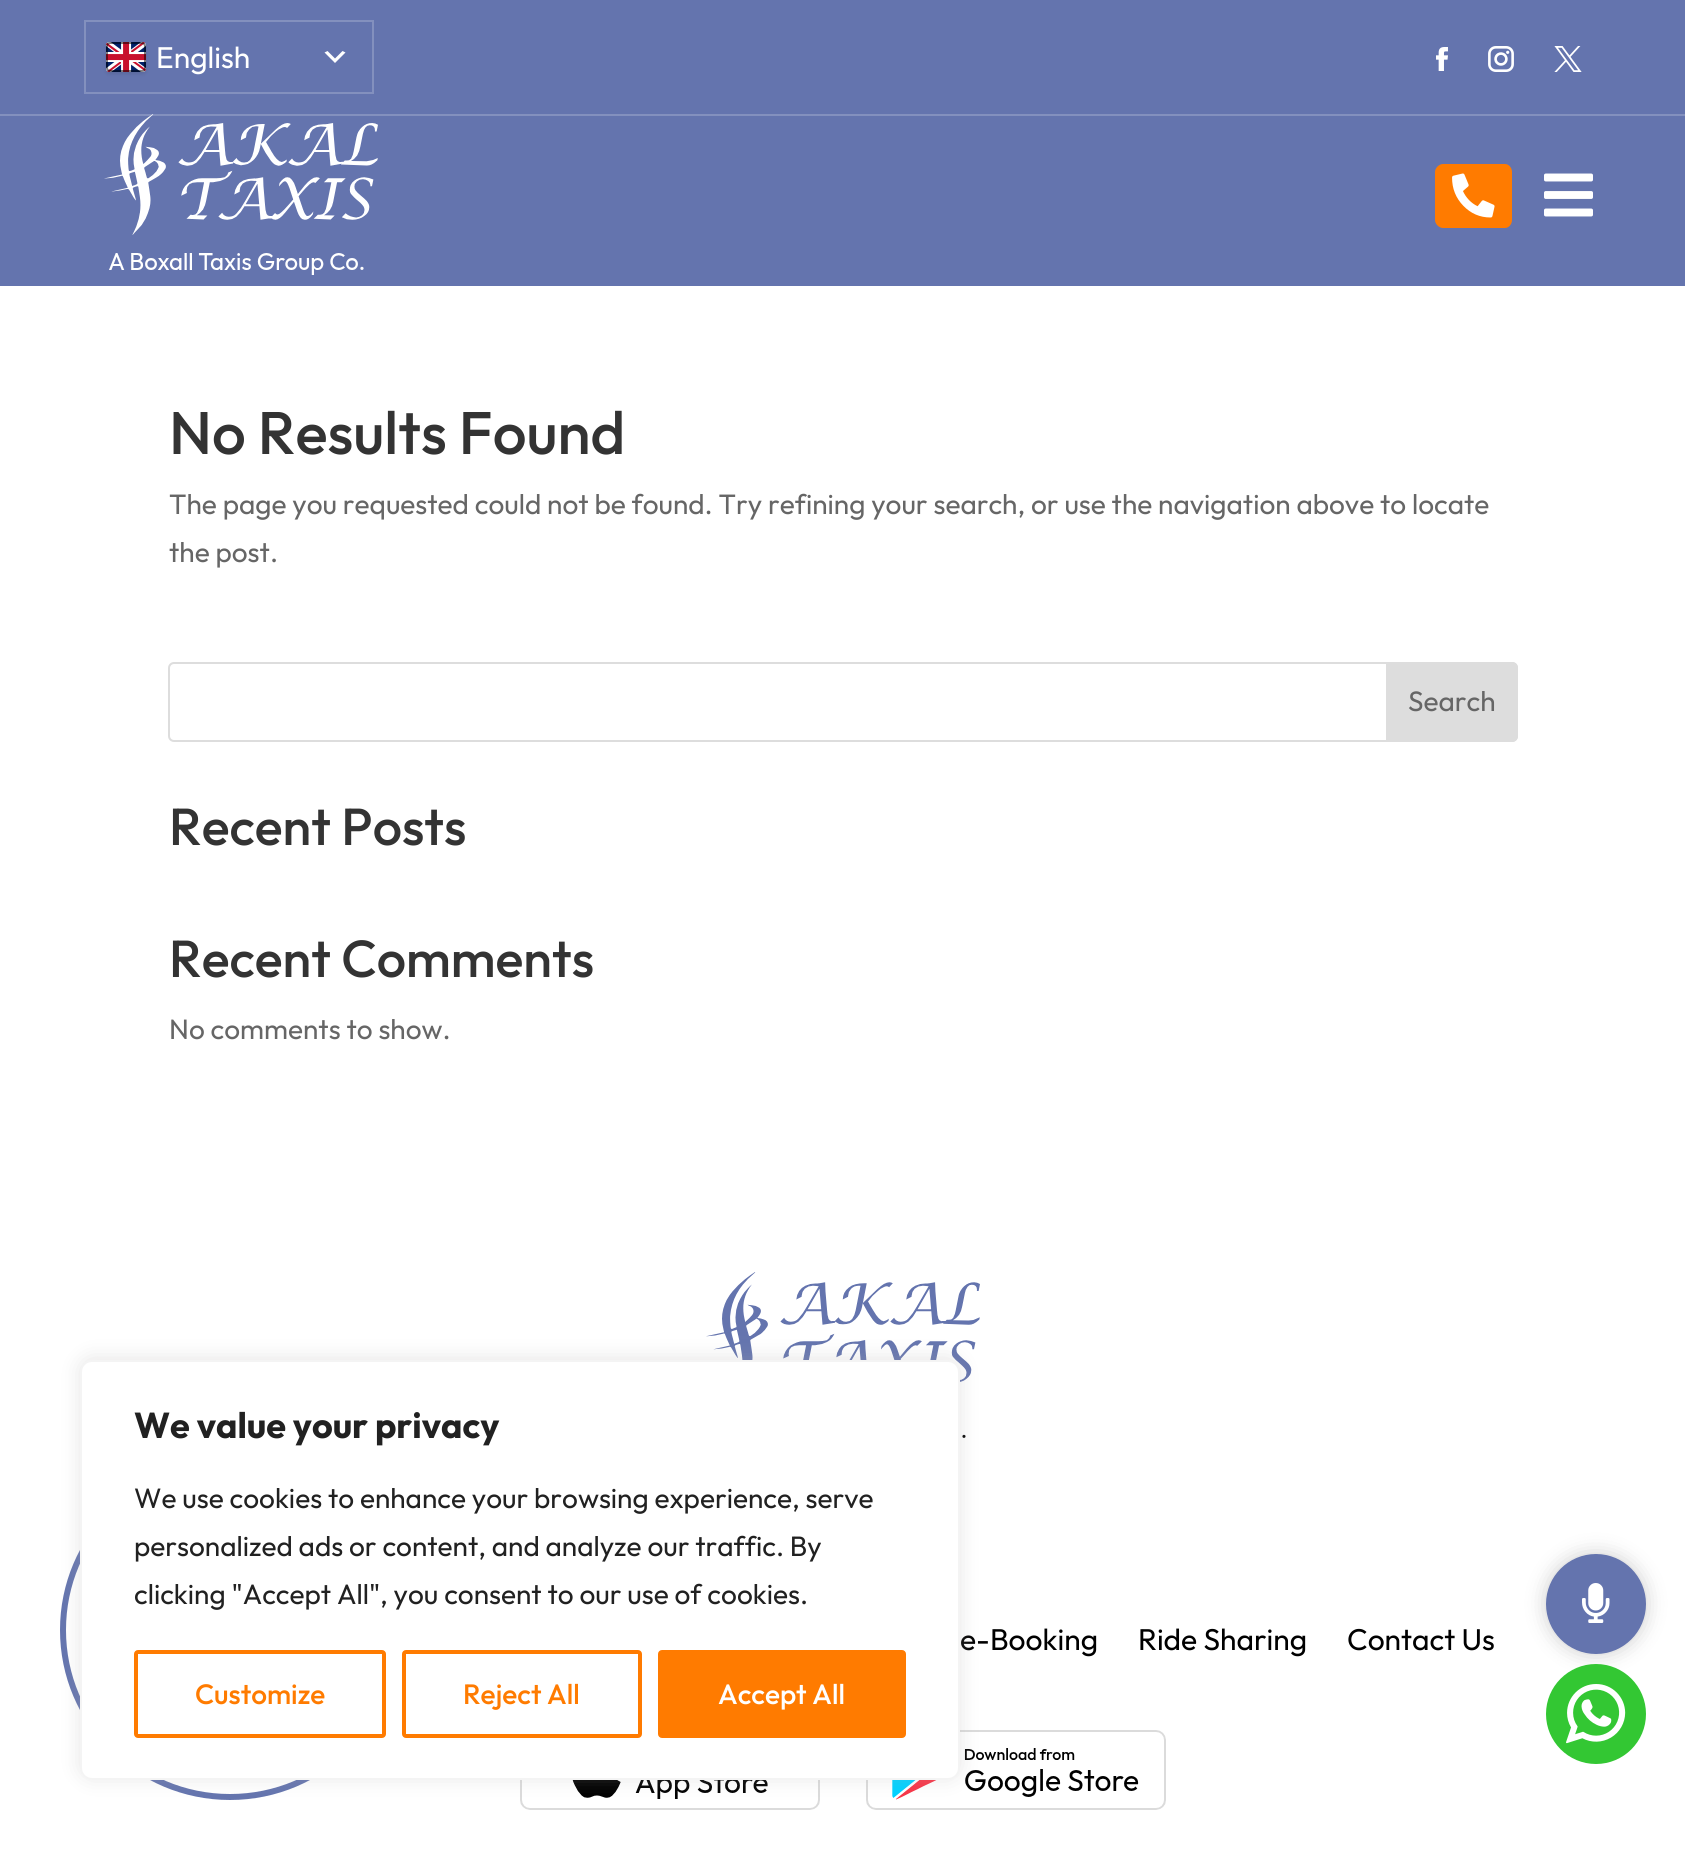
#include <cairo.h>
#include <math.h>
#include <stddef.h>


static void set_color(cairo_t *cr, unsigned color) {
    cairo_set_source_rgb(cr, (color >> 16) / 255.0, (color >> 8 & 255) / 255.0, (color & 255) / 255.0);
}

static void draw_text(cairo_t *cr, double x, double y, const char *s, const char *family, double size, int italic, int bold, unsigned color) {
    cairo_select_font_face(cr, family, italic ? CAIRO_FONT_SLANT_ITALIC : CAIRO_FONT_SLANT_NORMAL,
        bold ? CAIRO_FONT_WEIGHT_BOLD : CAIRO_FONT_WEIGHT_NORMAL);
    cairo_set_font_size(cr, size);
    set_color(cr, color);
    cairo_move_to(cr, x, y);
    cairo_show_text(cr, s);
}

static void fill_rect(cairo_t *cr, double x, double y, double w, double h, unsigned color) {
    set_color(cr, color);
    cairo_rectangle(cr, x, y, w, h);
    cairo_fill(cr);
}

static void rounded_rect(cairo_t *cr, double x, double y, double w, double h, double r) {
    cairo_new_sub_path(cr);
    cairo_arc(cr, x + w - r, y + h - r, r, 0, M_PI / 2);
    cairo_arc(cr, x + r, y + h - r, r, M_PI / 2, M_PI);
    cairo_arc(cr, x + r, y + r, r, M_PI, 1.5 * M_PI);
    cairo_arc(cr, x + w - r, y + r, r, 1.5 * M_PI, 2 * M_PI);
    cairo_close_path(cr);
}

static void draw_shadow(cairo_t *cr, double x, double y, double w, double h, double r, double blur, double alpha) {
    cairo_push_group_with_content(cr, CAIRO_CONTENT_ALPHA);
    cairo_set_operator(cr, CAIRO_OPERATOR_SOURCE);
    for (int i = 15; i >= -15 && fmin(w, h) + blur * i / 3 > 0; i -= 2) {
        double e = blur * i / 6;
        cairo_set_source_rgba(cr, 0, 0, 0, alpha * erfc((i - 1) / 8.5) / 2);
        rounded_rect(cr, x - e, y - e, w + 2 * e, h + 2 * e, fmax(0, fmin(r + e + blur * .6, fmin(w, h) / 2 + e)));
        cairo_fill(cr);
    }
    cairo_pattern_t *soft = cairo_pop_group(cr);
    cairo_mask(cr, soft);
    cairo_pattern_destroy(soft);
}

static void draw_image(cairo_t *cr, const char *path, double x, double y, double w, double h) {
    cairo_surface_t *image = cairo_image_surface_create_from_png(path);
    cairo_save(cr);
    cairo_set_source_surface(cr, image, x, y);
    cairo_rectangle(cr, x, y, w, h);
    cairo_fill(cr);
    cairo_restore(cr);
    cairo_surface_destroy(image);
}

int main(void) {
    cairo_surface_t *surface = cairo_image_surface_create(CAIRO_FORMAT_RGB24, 1685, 1860);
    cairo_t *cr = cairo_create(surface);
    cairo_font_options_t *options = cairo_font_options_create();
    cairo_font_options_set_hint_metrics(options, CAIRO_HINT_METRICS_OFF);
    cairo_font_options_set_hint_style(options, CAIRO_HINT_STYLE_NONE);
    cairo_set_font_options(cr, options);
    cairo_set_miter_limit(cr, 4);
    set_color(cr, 0xFFFFFF);
    cairo_paint(cr);
    fill_rect(cr, 0, 0, 1685, 286, 0x6474AE);
    cairo_rectangle(cr, 85, 21, 288, 72);
    set_color(cr, 0x8390BE);
    cairo_stroke(cr);
    set_color(cr, 0x000000);
    draw_shadow(cr, 106, 44, 40, 30, 3, 2, 0.1);
    draw_image(cr, "assets/img1.png", 106, 42, 40, 30);
    rounded_rect(cr, 107, 43, 38, 28, 3);
    cairo_set_source_rgba(cr, 0, 0, 0, 0.5);
    cairo_stroke(cr);
    draw_text(cr, 156, 68, "English", "Outfit", 30, 0, 0, 0xFFFFFF);
    cairo_new_path(cr);
    cairo_move_to(cr, 327.5, 51);
    cairo_line_to(cr, 335, 58.5);
    cairo_line_to(cr, 342.5, 51);
    cairo_line_to(cr, 345.5, 52.5);
    cairo_line_to(cr, 335, 63);
    cairo_line_to(cr, 324.5, 52.5);
    cairo_close_path(cr);
    cairo_fill(cr);
    draw_image(cr, "assets/img2.png", 1436, 47, 12, 24);
    draw_image(cr, "assets/img3.png", 1488, 46, 26, 26);
    draw_image(cr, "assets/img4.png", 1554, 46, 28, 26);
    fill_rect(cr, 0, 114, 1685, 2, 0x8390BE);
    draw_image(cr, "assets/img5.png", 104, 114, 274, 161);
    set_color(cr, 0xFF7B00);
    cairo_new_path(cr);
    cairo_move_to(cr, 1505, 164);
    cairo_line_to(cr, 1443, 164);
    cairo_curve_to(cr, 1439, 164, 1435, 168, 1435, 172);
    cairo_line_to(cr, 1435, 220);
    cairo_curve_to(cr, 1435, 224, 1439, 228, 1443, 228);
    cairo_line_to(cr, 1505, 228);
    cairo_curve_to(cr, 1509, 228, 1512, 224, 1512, 220);
    cairo_line_to(cr, 1512, 172);
    cairo_curve_to(cr, 1512, 168, 1509, 164, 1505, 164);
    cairo_close_path(cr);
    cairo_fill(cr);
    draw_image(cr, "assets/img6.png", 1452, 173, 43, 45);
    draw_image(cr, "assets/img7.png", 1544, 173, 49, 44);
    draw_text(cr, 169, 454, "No Results Found", "Outfit Medium", 60, 0, 0, 0x333333);
    draw_text(cr, 169, 514, "The page you requested could not be found. Try refining your search, or use the navigation above to locate", "Outfit", 28, 0, 0, 0x666666);
    draw_text(cr, 169, 562, "the post.", "Outfit", 28, 0, 0, 0x666666);
    rounded_rect(cr, 169, 663, 1348, 78, 5);
    set_color(cr, 0xDDDDDD);
    cairo_stroke(cr);
    cairo_new_path(cr);
    cairo_move_to(cr, 1387, 663);
    cairo_line_to(cr, 1512, 663);
    cairo_curve_to(cr, 1515, 663, 1517, 665, 1517, 668);
    cairo_line_to(cr, 1517, 736);
    cairo_curve_to(cr, 1517, 739, 1515, 741, 1512, 741);
    cairo_line_to(cr, 1387, 741);
    cairo_close_path(cr);
    cairo_fill_preserve(cr);
    cairo_stroke(cr);
    draw_text(cr, 1408, 711, "Search", "Outfit", 28, 0, 0, 0x666666);
    draw_text(cr, 169, 845, "Recent Posts", "Outfit Medium", 52, 0, 0, 0x333333);
    draw_text(cr, 169, 977, "Recent Comments", "Outfit Medium", 52, 0, 0, 0x333333);
    draw_text(cr, 169, 1039, "No comments to show.", "Outfit", 28, 0, 0, 0x666666);
    draw_image(cr, "assets/img8.png", 706, 1272, 274, 166);
    draw_text(cr, 960, 1650, "e-Booking", "Outfit", 30, 0, 0, 0x000000);
    draw_text(cr, 1138, 1650, "Ride Sharing", "Outfit", 30, 0, 0, 0x000000);
    draw_text(cr, 1347, 1650, "Contact Us", "Outfit", 30, 0, 0, 0x000000);
    draw_image(cr, "assets/img9.png", 520, 1780, 300, 30);
    draw_image(cr, "assets/img10.png", 866, 1730, 300, 80);
    cairo_arc(cr, 230, 1630, 167, 0, 2 * M_PI);
    set_color(cr, 0x6474AE);
    cairo_set_line_width(cr, 6);
    cairo_stroke(cr);
    set_color(cr, 0xACABAB);
    draw_shadow(cr, 80, 1358, 880, 420, 12, 10, 0.3);
    set_color(cr, 0xFFFFFF);
    rounded_rect(cr, 81, 1361, 878, 418, 11);
    cairo_fill_preserve(cr);
    set_color(cr, 0xF4F4F4);
    cairo_set_line_width(cr, 2);
    cairo_stroke(cr);
    draw_text(cr, 134, 1438, "We value your privacy", "Outfit", 36, 0, 1, 0x212121);
    draw_text(cr, 134, 1508, "We use cookies to enhance your browsing experience, serve", "Outfit", 28, 0, 0, 0x212121);
    draw_text(cr, 134, 1556, "personalized ads or content, and analyze our traffic. By", "Outfit", 28, 0, 0, 0x212121);
    draw_text(cr, 134, 1604, "clicking \"Accept All\", you consent to our use of cookies.", "Outfit", 28, 0, 0, 0x212121);
    rounded_rect(cr, 136, 1652, 248, 84, 2);
    set_color(cr, 0xFF7B00);
    cairo_set_line_width(cr, 4);
    cairo_stroke(cr);
    draw_text(cr, 195, 1704, "Customize", "Outfit Medium", 28, 0, 0, 0xFF7B00);
    rounded_rect(cr, 404, 1652, 236, 84, 2);
    cairo_stroke(cr);
    draw_text(cr, 463, 1704, "Reject All", "Outfit Medium", 28, 0, 0, 0xFF7B00);
    rounded_rect(cr, 660, 1652, 244, 84, 2);
    cairo_fill_preserve(cr);
    cairo_stroke(cr);
    draw_text(cr, 718, 1704, "Accept All", "Outfit Medium", 28, 0, 0, 0xFFFFFF);
    set_color(cr, 0x000000);
    draw_shadow(cr, 1546, 1554, 100, 100, 50, 10, 0.2);
    set_color(cr, 0x6474AE);
    cairo_arc(cr, 1596, 1604, 45, 0, 2 * M_PI);
    cairo_fill_preserve(cr);
    cairo_set_line_width(cr, 10);
    cairo_stroke(cr);
    draw_image(cr, "assets/img11.png", 1582, 1583, 28, 40);
    draw_image(cr, "assets/img12.png", 1546, 1664, 100, 100);
    cairo_surface_write_to_png(surface, "output.png");
    cairo_font_options_destroy(options);
    cairo_destroy(cr);
    cairo_surface_destroy(surface);
    return 0;
}
